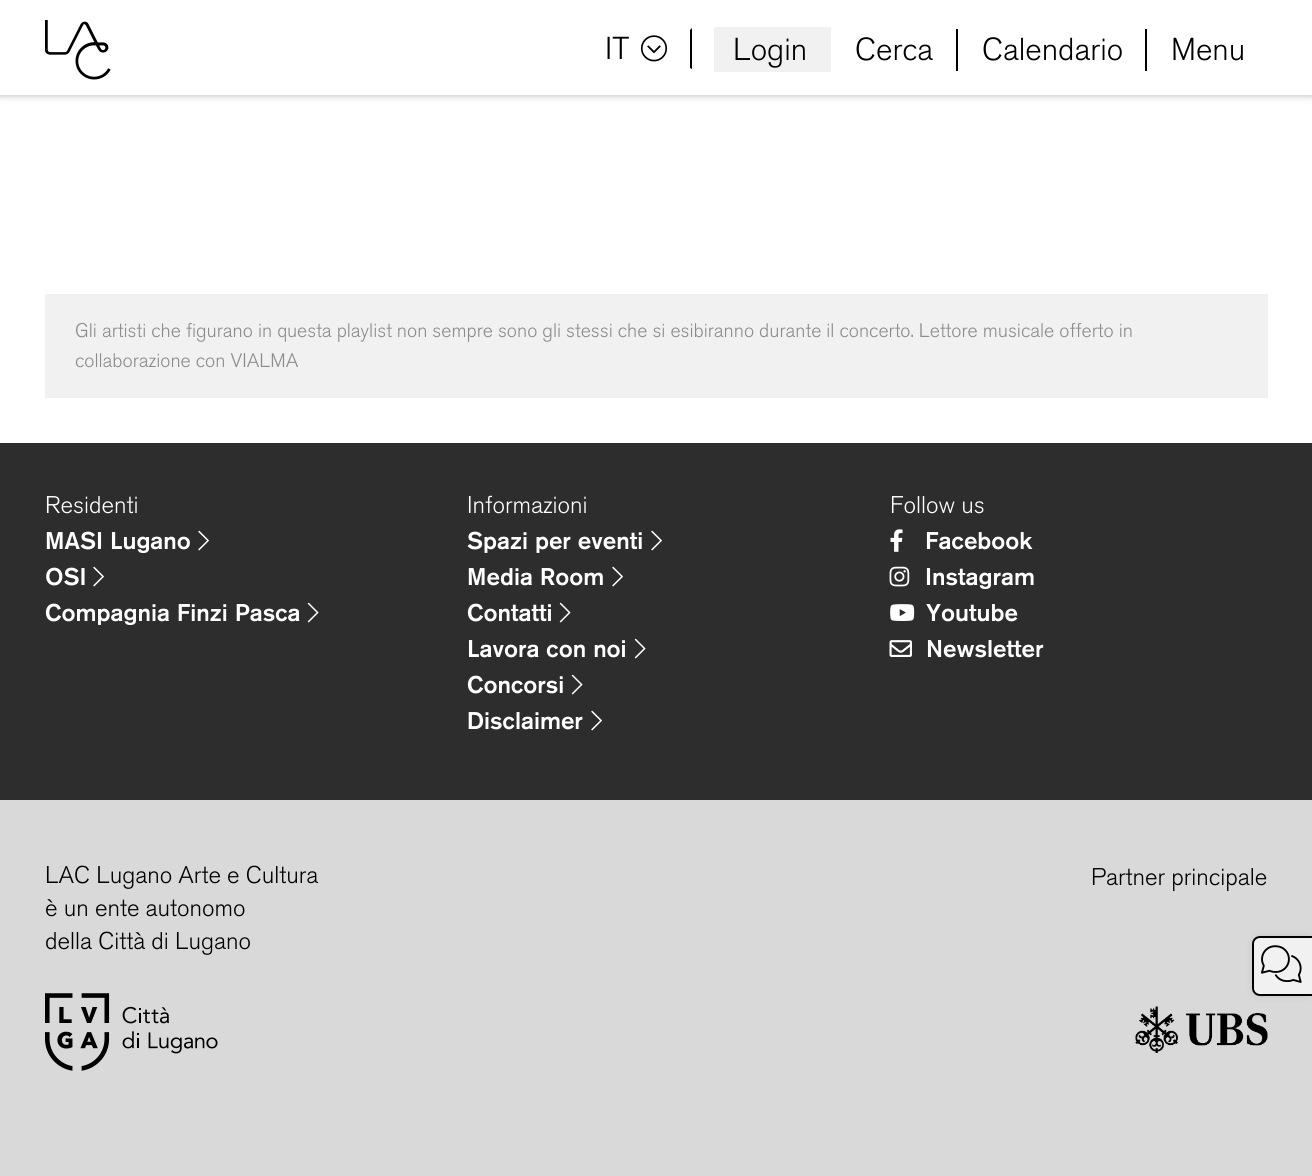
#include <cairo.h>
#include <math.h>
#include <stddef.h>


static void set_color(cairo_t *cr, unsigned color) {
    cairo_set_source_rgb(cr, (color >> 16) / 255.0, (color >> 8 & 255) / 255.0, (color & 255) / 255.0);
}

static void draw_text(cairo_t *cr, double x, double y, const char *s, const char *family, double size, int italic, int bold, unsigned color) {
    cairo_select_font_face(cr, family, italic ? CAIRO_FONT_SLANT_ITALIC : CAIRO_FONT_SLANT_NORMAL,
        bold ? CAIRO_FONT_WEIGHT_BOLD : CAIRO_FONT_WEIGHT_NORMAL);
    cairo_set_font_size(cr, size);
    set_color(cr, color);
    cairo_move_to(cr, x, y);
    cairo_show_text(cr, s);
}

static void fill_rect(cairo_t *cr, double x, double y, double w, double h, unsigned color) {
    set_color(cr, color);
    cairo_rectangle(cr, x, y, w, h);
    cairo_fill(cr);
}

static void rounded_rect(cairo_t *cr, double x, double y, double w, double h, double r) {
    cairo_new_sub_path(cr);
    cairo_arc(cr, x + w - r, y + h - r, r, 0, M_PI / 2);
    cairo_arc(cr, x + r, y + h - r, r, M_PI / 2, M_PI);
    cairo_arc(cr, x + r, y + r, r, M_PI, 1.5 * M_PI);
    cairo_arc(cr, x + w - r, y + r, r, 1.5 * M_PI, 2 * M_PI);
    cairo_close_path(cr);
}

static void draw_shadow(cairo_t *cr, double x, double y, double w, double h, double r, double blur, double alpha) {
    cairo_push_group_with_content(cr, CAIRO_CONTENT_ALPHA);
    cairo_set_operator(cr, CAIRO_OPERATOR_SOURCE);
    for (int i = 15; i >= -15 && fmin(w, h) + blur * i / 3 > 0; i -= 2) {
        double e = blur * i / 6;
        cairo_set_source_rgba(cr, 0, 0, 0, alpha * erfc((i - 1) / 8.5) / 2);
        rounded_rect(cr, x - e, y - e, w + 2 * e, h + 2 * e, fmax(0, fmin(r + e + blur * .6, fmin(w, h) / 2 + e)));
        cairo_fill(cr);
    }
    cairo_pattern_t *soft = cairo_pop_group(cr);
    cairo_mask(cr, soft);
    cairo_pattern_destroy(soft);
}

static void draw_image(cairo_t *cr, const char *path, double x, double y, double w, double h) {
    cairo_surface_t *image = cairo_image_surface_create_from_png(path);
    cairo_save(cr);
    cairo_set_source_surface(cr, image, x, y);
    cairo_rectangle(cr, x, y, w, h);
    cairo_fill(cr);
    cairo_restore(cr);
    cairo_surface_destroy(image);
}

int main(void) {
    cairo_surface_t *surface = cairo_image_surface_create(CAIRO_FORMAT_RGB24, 1312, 1176);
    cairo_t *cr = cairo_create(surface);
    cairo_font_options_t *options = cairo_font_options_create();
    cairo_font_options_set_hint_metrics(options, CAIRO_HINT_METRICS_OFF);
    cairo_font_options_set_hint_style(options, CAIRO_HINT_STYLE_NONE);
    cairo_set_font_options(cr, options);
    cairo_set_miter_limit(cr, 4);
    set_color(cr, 0xFFFFFF);
    cairo_paint(cr);
    set_color(cr, 0x000000);
    draw_shadow(cr, 0, 0, 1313, 95, 0, 4, 0.3);
    fill_rect(cr, 0, 0, 1312, 95, 0xFFFFFF);
    draw_image(cr, "assets/img1.png", 45, 20, 66, 60);
    set_color(cr, 0x000000);
    cairo_new_path(cr);
    cairo_move_to(cr, 692, 28);
    cairo_line_to(cr, 692, 69);
    cairo_line_to(cr, 690, 68);
    cairo_line_to(cr, 690, 30);
    cairo_close_path(cr);
    cairo_fill(cr);
    draw_text(cr, 605, 59, "IT", "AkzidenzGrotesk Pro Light", 31.5, 0, 0, 0x000000);
    draw_image(cr, "assets/img2.png", 640, 35, 28, 27);
    fill_rect(cr, 714, 27, 117, 45, 0xF1F1F1);
    draw_text(cr, 733, 60, "Login", "AkzidenzGrotesk Pro Light", 31.5, 0, 0, 0x000000);
    draw_text(cr, 855, 60, "Cerca", "AkzidenzGrotesk Pro Light", 31.5, 0, 0, 0x000000);
    fill_rect(cr, 956, 29, 2, 42, 0x000000);
    draw_text(cr, 982, 60, "Calendario", "AkzidenzGrotesk Pro Light", 31.5, 0, 0, 0x000000);
    fill_rect(cr, 1145, 29, 2, 42, 0x000000);
    draw_text(cr, 1171, 60, "Menu", "AkzidenzGrotesk Pro Light", 31.5, 0, 0, 0x000000);
    fill_rect(cr, 45, 294, 1223, 104, 0xF1F1F1);
    draw_text(cr, 75, 337, "Gli artisti che figurano in questa playlist non sempre sono gli stessi che si esibiranno durante il concerto. Lettore musicale offerto in", "AkzidenzGrotesk Pro Light", 19.5, 0, 0, 0x8C8C8C);
    draw_text(cr, 75, 367, "collaborazione con VIALMA", "AkzidenzGrotesk Pro Light", 19.5, 0, 0, 0x8C8C8C);
    fill_rect(cr, 0, 443, 1312, 357, 0x2D2D2D);
    draw_text(cr, 45, 513, "Residenti", "AkzidenzGrotesk Pro Light", 24, 0, 0, 0xFFFFFF);
    draw_text(cr, 45, 549, "MASI Lugano", "AkzidenzGrotesk Pro Medium", 24, 0, 0, 0xFFFFFF);
    draw_image(cr, "assets/img3.png", 198, 530, 11, 21);
    draw_text(cr, 45, 585, "OSI", "AkzidenzGrotesk Pro Medium", 24, 0, 0, 0xFFFFFF);
    draw_image(cr, "assets/img3.png", 93, 566, 11, 21);
    draw_text(cr, 45, 621, "Compagnia Finzi Pasca", "AkzidenzGrotesk Pro Medium", 24, 0, 0, 0xFFFFFF);
    draw_image(cr, "assets/img4.png", 307, 602, 12, 21);
    draw_text(cr, 467, 513, "Informazioni", "AkzidenzGrotesk Pro Light", 24, 0, 0, 0xFFFFFF);
    draw_text(cr, 467, 549, "Spazi per eventi", "AkzidenzGrotesk Pro Medium", 24, 0, 0, 0xFFFFFF);
    draw_image(cr, "assets/img3.png", 651, 530, 11, 21);
    draw_text(cr, 467, 585, "Media Room", "AkzidenzGrotesk Pro Medium", 24, 0, 0, 0xFFFFFF);
    draw_image(cr, "assets/img3.png", 612, 566, 11, 21);
    draw_text(cr, 467, 621, "Contatti", "AkzidenzGrotesk Pro Medium", 24, 0, 0, 0xFFFFFF);
    draw_image(cr, "assets/img4.png", 559, 602, 12, 21);
    draw_text(cr, 467, 657, "Lavora con noi", "AkzidenzGrotesk Pro Medium", 24, 0, 0, 0xFFFFFF);
    draw_image(cr, "assets/img4.png", 634, 638, 12, 21);
    draw_text(cr, 467, 693, "Concorsi", "AkzidenzGrotesk Pro Medium", 24, 0, 0, 0xFFFFFF);
    draw_image(cr, "assets/img4.png", 571, 674, 12, 21);
    draw_text(cr, 467, 729, "Disclaimer", "AkzidenzGrotesk Pro Medium", 24, 0, 0, 0xFFFFFF);
    draw_image(cr, "assets/img3.png", 591, 710, 11, 21);
    draw_text(cr, 890, 513, "Follow us", "AkzidenzGrotesk Pro Light", 24, 0, 0, 0xFFFFFF);
    draw_image(cr, "assets/img5.png", 890, 529, 13, 23);
    draw_text(cr, 925, 549, "Facebook", "AkzidenzGrotesk Pro Medium", 24, 0, 0, 0xFFFFFF);
    draw_image(cr, "assets/img6.png", 889, 566, 21, 21);
    draw_text(cr, 925, 585, "Instagram", "AkzidenzGrotesk Pro Medium", 24, 0, 0, 0xFFFFFF);
    draw_image(cr, "assets/img7.png", 890, 604, 25, 17);
    draw_text(cr, 926, 621, "Youtube", "AkzidenzGrotesk Pro Medium", 24, 0, 0, 0xFFFFFF);
    draw_image(cr, "assets/img8.png", 889, 640, 23, 17);
    draw_text(cr, 926, 657, "Newsletter", "AkzidenzGrotesk Pro Medium", 24, 0, 0, 0xFFFFFF);
    fill_rect(cr, 0, 800, 1312, 376, 0xDAD9D9);
    draw_text(cr, 45, 883, "LAC Lugano Arte e Cultura", "AkzidenzGrotesk Pro Light", 24, 0, 0, 0x000000);
    draw_text(cr, 45, 916, "è un ente autonomo", "AkzidenzGrotesk Pro Light", 24, 0, 0, 0x000000);
    draw_text(cr, 45, 949, "della Città di Lugano", "AkzidenzGrotesk Pro Light", 24, 0, 0, 0x000000);
    draw_image(cr, "assets/img9.png", 45, 993, 173, 78);
    draw_text(cr, 1091, 885, "Partner principale", "AkzidenzGrotesk Pro Light", 24, 0, 0, 0x000000);
    draw_image(cr, "assets/img10.png", 1135, 1006, 133, 47);
    set_color(cr, 0x000000);
    draw_shadow(cr, 1253, 936, 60, 60, 8, 4, 0.1);
    set_color(cr, 0xF1F1F1);
    cairo_new_path(cr);
    cairo_move_to(cr, 1261, 936);
    cairo_line_to(cr, 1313, 936);
    cairo_line_to(cr, 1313, 996);
    cairo_line_to(cr, 1261, 996);
    cairo_curve_to(cr, 1256.5, 996, 1253, 992.5, 1253, 988);
    cairo_line_to(cr, 1253, 944);
    cairo_curve_to(cr, 1253, 939.5, 1256.5, 936, 1261, 936);
    cairo_close_path(cr);
    cairo_fill(cr);
    set_color(cr, 0x000000);
    cairo_set_fill_rule(cr, CAIRO_FILL_RULE_EVEN_ODD);
    cairo_new_path(cr);
    cairo_move_to(cr, 1260, 936);
    cairo_line_to(cr, 1312, 936);
    cairo_line_to(cr, 1312, 996);
    cairo_line_to(cr, 1260, 996);
    cairo_curve_to(cr, 1256, 996, 1252, 993, 1252, 988);
    cairo_line_to(cr, 1252, 944);
    cairo_curve_to(cr, 1252, 939, 1256, 936, 1260, 936);
    cairo_close_path(cr);
    cairo_move_to(cr, 1260, 938);
    cairo_line_to(cr, 1312, 938);
    cairo_line_to(cr, 1312, 994);
    cairo_line_to(cr, 1260, 994);
    cairo_curve_to(cr, 1257, 994, 1254, 992, 1254, 988);
    cairo_line_to(cr, 1254, 944);
    cairo_curve_to(cr, 1254, 940, 1257, 938, 1260, 938);
    cairo_close_path(cr);
    cairo_fill(cr);
    draw_image(cr, "assets/img11.png", 1261, 945, 41, 38);
    cairo_surface_write_to_png(surface, "output.png");
    cairo_font_options_destroy(options);
    cairo_destroy(cr);
    cairo_surface_destroy(surface);
    return 0;
}
